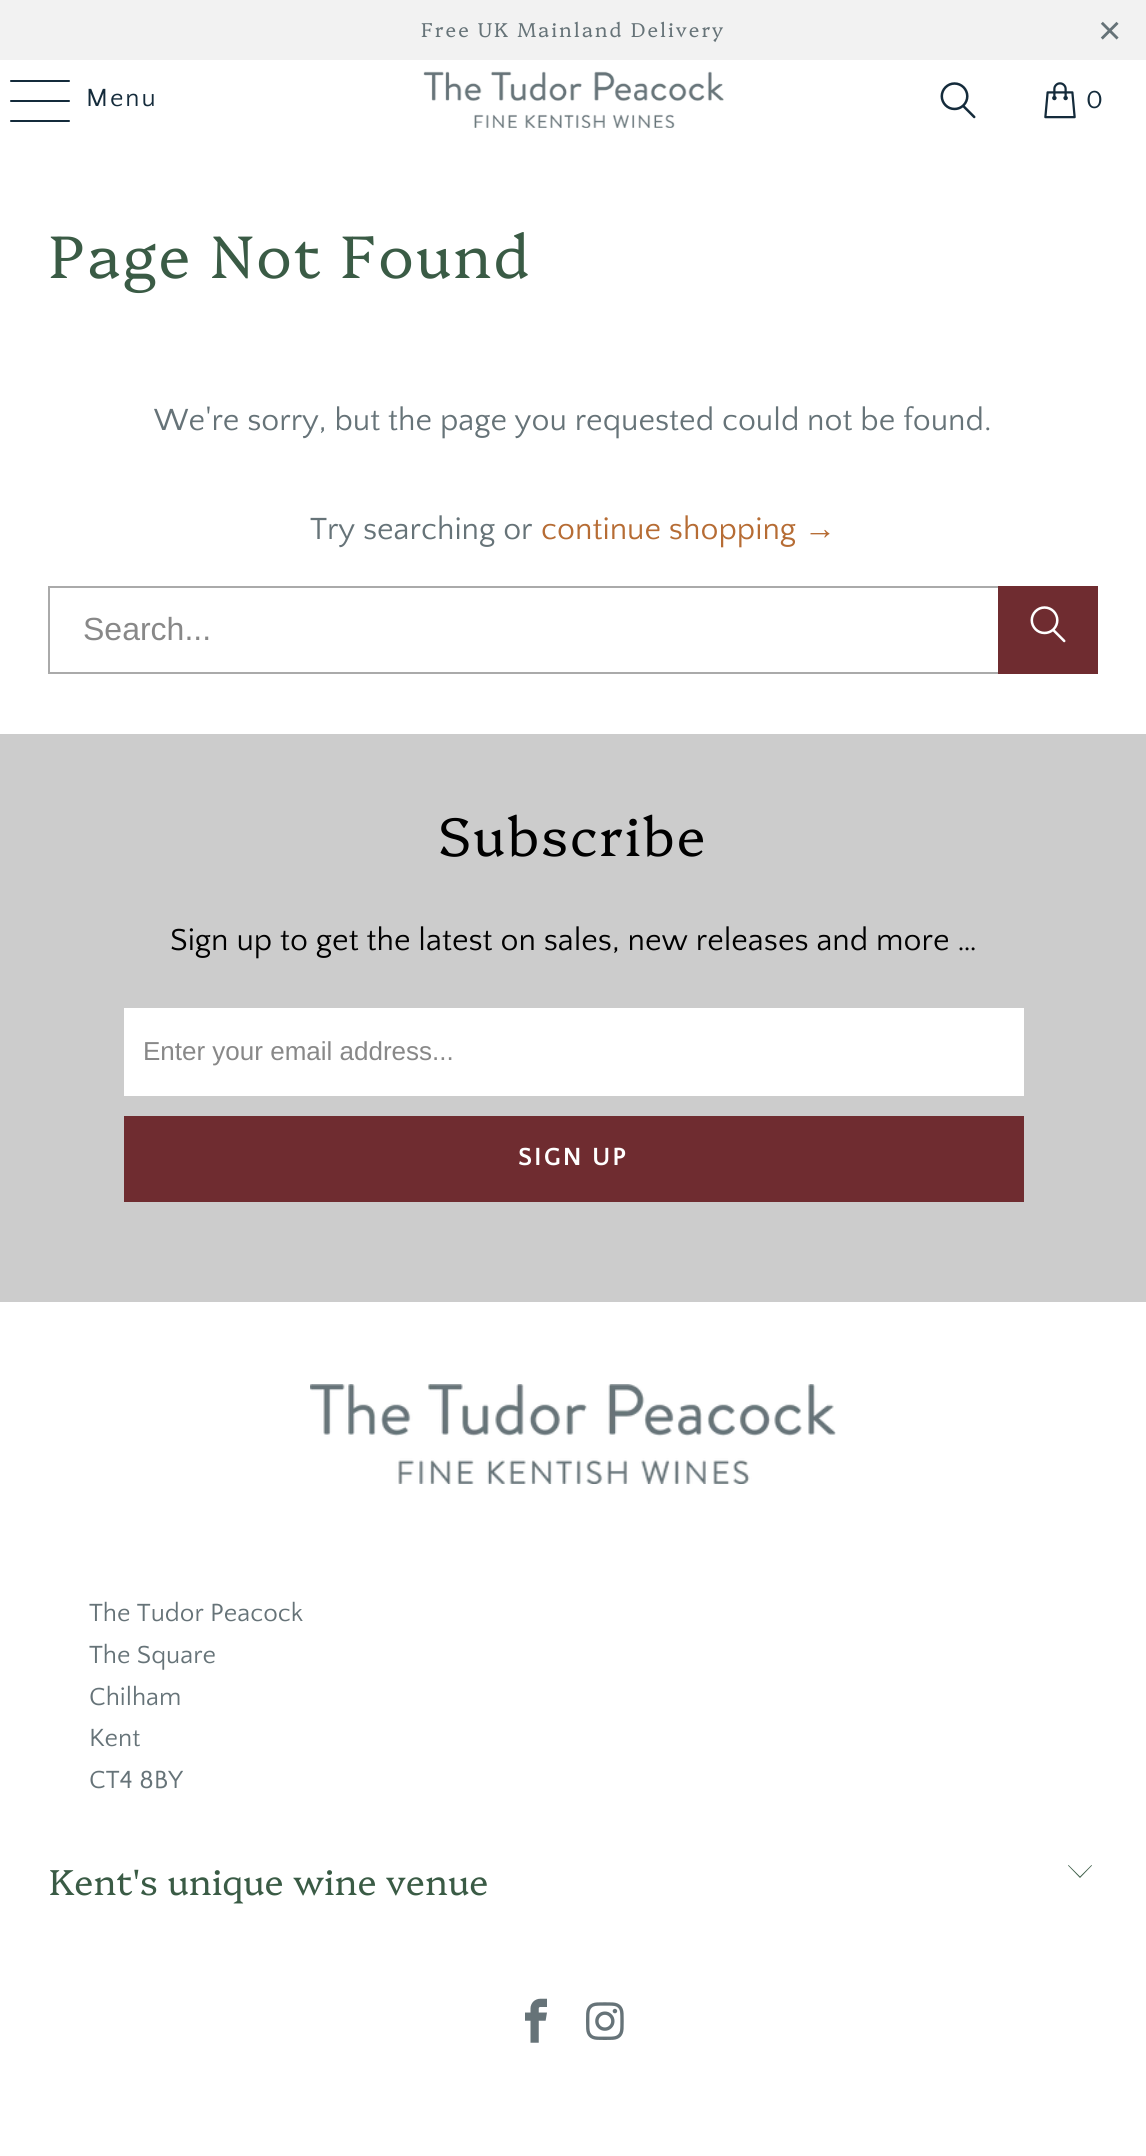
#include <cairo.h>
#include <math.h>
#include <stddef.h>


static void set_color(cairo_t *cr, unsigned color) {
    cairo_set_source_rgb(cr, (color >> 16) / 255.0, (color >> 8 & 255) / 255.0, (color & 255) / 255.0);
}

static void draw_text(cairo_t *cr, double x, double y, const char *s, const char *family, double size, int italic, int bold, unsigned color) {
    cairo_select_font_face(cr, family, italic ? CAIRO_FONT_SLANT_ITALIC : CAIRO_FONT_SLANT_NORMAL,
        bold ? CAIRO_FONT_WEIGHT_BOLD : CAIRO_FONT_WEIGHT_NORMAL);
    cairo_set_font_size(cr, size);
    set_color(cr, color);
    cairo_move_to(cr, x, y);
    cairo_show_text(cr, s);
}

static void draw_spaced(cairo_t *cr, double x, double y, const char *s, double letter, double word) {
    cairo_move_to(cr, x, y);
    while (*s) {
        char ch[5] = {0};
        int n = 0;
        do ch[n++] = *s++; while ((*s & 0xC0) == 0x80);
        cairo_show_text(cr, ch);
        cairo_rel_move_to(cr, letter + word * (*ch == ' '), 0);
    }
}

static void fill_rect(cairo_t *cr, double x, double y, double w, double h, unsigned color) {
    set_color(cr, color);
    cairo_rectangle(cr, x, y, w, h);
    cairo_fill(cr);
}

static void rounded_rect(cairo_t *cr, double x, double y, double w, double h, double r) {
    cairo_new_sub_path(cr);
    cairo_arc(cr, x + w - r, y + h - r, r, 0, M_PI / 2);
    cairo_arc(cr, x + r, y + h - r, r, M_PI / 2, M_PI);
    cairo_arc(cr, x + r, y + r, r, M_PI, 1.5 * M_PI);
    cairo_arc(cr, x + w - r, y + r, r, 1.5 * M_PI, 2 * M_PI);
    cairo_close_path(cr);
}

static void draw_image(cairo_t *cr, const char *path, double x, double y, double w, double h) {
    cairo_surface_t *image = cairo_image_surface_create_from_png(path);
    cairo_save(cr);
    cairo_set_source_surface(cr, image, x, y);
    cairo_rectangle(cr, x, y, w, h);
    cairo_fill(cr);
    cairo_restore(cr);
    cairo_surface_destroy(image);
}

int main(void) {
    cairo_surface_t *surface = cairo_image_surface_create(CAIRO_FORMAT_RGB24, 1146, 2156);
    cairo_t *cr = cairo_create(surface);
    cairo_font_options_t *options = cairo_font_options_create();
    cairo_font_options_set_hint_metrics(options, CAIRO_HINT_METRICS_OFF);
    cairo_font_options_set_hint_style(options, CAIRO_HINT_STYLE_NONE);
    cairo_set_font_options(cr, options);
    cairo_set_miter_limit(cr, 4);
    set_color(cr, 0xFFFFFF);
    cairo_paint(cr);
    fill_rect(cr, 0, 0, 1146, 60, 0xF2F2F2);
    cairo_select_font_face(cr, "Platypi Light", CAIRO_FONT_SLANT_NORMAL, CAIRO_FONT_WEIGHT_NORMAL);
    cairo_set_font_size(cr, 20);
    set_color(cr, 0x667378);
    draw_spaced(cr, 421, 37, "Free UK Mainland Delivery", 2, 0);
    cairo_select_font_face(cr, "Liberation Sans", CAIRO_FONT_SLANT_NORMAL, CAIRO_FONT_WEIGHT_NORMAL);
    cairo_set_font_size(cr, 40);
    draw_spaced(cr, 1098, 44, "×", 2, 0);
    set_color(cr, 0x142B3B);
    rounded_rect(cr, 10, 80, 60, 2, 1);
    cairo_fill(cr);
    rounded_rect(cr, 10, 100, 60, 2, 1);
    cairo_fill(cr);
    rounded_rect(cr, 10, 120, 60, 2, 1);
    cairo_fill(cr);
    cairo_select_font_face(cr, "Quattrocento Sans", CAIRO_FONT_SLANT_NORMAL, CAIRO_FONT_WEIGHT_NORMAL);
    cairo_set_font_size(cr, 26);
    draw_spaced(cr, 86, 106, "Menu", 2, 0);
    draw_image(cr, "assets/img1.png", 423, 71, 301, 57);
    draw_image(cr, "assets/img2.png", 940, 82, 36, 37);
    draw_image(cr, "assets/img3.png", 1044, 82, 32, 37);
    draw_spaced(cr, 1086, 108, "0", 2, 0);
    cairo_select_font_face(cr, "Platypi Light", CAIRO_FONT_SLANT_NORMAL, CAIRO_FONT_WEIGHT_NORMAL);
    cairo_set_font_size(cr, 60);
    set_color(cr, 0x3A5B45);
    draw_spaced(cr, 49, 278, "Page Not Found", 2, 0);
    draw_text(cr, 154, 430, "We're sorry, but the page you requested could not be found.", "Quattrocento Sans", 32, 0, 0, 0x667378);
    draw_text(cr, 310, 539, "Try searching or", "Quattrocento Sans", 32, 0, 0, 0x667378);
    draw_text(cr, 541, 539, "continue shopping", "Quattrocento Sans", 32, 0, 0, 0xB66C34);
    draw_text(cr, 804, 539, "→", "Liberation Sans", 32, 0, 0, 0xB66C34);
    cairo_rectangle(cr, 49, 587, 1048, 86);
    set_color(cr, 0xAAAAAA);
    cairo_stroke(cr);
    draw_text(cr, 83, 640, "Search...", "Liberation Sans", 32, 0, 0, 0x888888);
    fill_rect(cr, 998, 586, 100, 88, 0x6F2C30);
    draw_image(cr, "assets/img4.png", 1030, 606, 36, 37);
    fill_rect(cr, 0, 734, 1146, 568, 0xCCCCCC);
    cairo_select_font_face(cr, "Platypi Light", CAIRO_FONT_SLANT_NORMAL, CAIRO_FONT_WEIGHT_NORMAL);
    cairo_set_font_size(cr, 54);
    set_color(cr, 0x000000);
    draw_spaced(cr, 438, 856, "Subscribe", 2, 0);
    draw_text(cr, 170, 950, "Sign up to get the latest on sales, new releases and more …", "Quattrocento Sans", 32, 0, 0, 0x000000);
    fill_rect(cr, 124, 1008, 900, 88, 0xFFFFFF);
    draw_text(cr, 143, 1060, "Enter your email address...", "Liberation Sans", 26, 0, 0, 0x888888);
    fill_rect(cr, 124, 1116, 900, 86, 0x6F2C30);
    cairo_select_font_face(cr, "Quattrocento Sans", CAIRO_FONT_SLANT_NORMAL, CAIRO_FONT_WEIGHT_BOLD);
    set_color(cr, 0xFFFFFF);
    draw_spaced(cr, 518, 1165, "SIGN UP", 2, 0);
    draw_image(cr, "assets/img5.png", 310, 1384, 526, 100);
    draw_text(cr, 89, 1621, "The Tudor Peacock", "Quattrocento Sans", 26, 0, 0, 0x667378);
    draw_text(cr, 89, 1663, "The Square", "Quattrocento Sans", 26, 0, 0, 0x667378);
    draw_text(cr, 89, 1705, "Chilham", "Quattrocento Sans", 26, 0, 0, 0x667378);
    draw_text(cr, 89, 1746, "Kent", "Quattrocento Sans", 26, 0, 0, 0x667378);
    draw_text(cr, 89, 1788, "CT4 8BY", "Quattrocento Sans", 26, 0, 0, 0x667378);
    draw_text(cr, 49, 1895, "Kent's unique wine venue", "Platypi Light", 36, 0, 0, 0x3A5B45);
    cairo_new_path(cr);
    cairo_move_to(cr, 1080, 1878);
    cairo_line_to(cr, 1068, 1865.5);
    cairo_line_to(cr, 1068.5, 1865);
    cairo_line_to(cr, 1080, 1876.5);
    cairo_line_to(cr, 1091.5, 1865);
    cairo_line_to(cr, 1092, 1865.5);
    cairo_close_path(cr);
    cairo_fill(cr);
    draw_image(cr, "assets/img6.png", 525, 1998, 22, 45);
    draw_image(cr, "assets/img7.png", 586, 2002, 38, 38);
    cairo_surface_write_to_png(surface, "output.png");
    cairo_font_options_destroy(options);
    cairo_destroy(cr);
    cairo_surface_destroy(surface);
    return 0;
}
